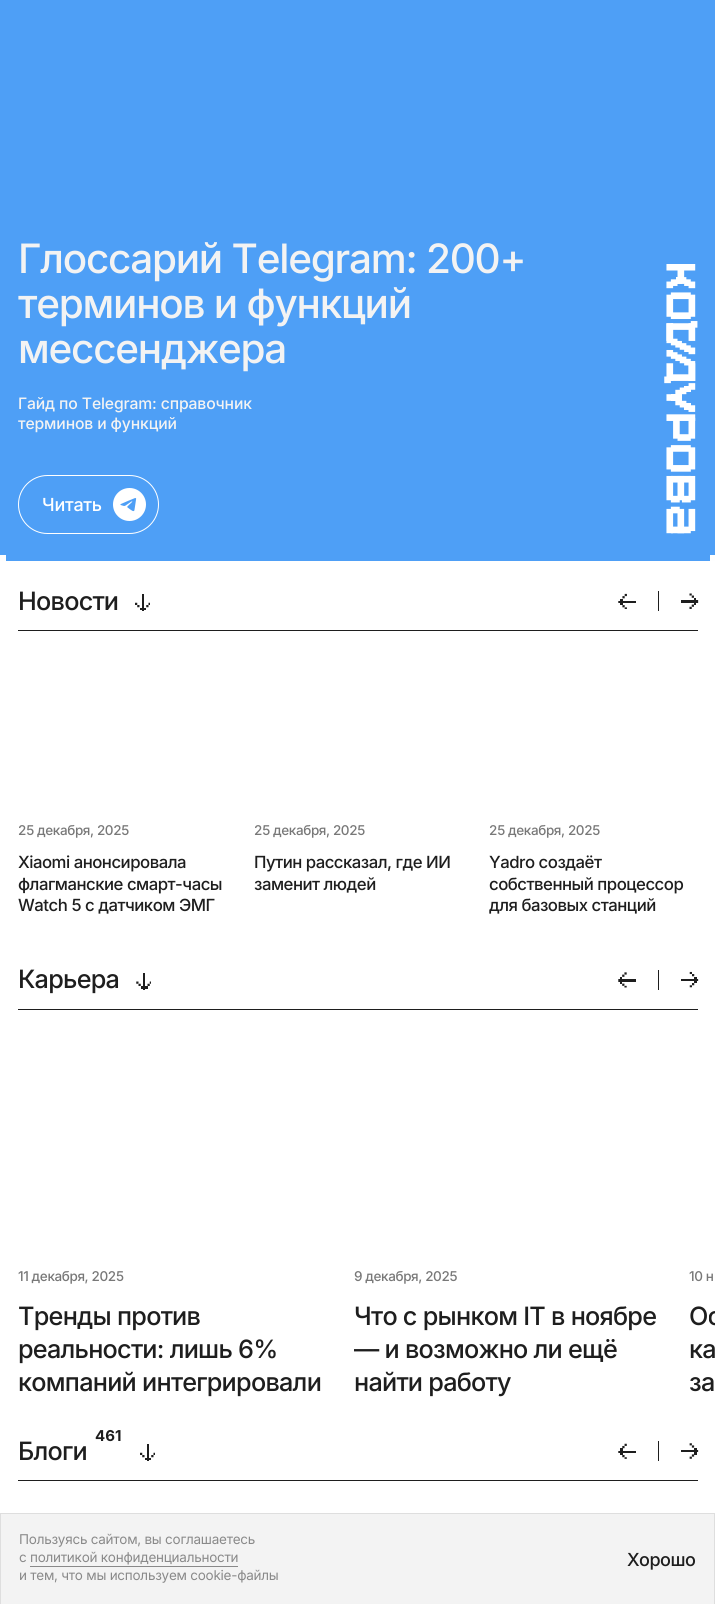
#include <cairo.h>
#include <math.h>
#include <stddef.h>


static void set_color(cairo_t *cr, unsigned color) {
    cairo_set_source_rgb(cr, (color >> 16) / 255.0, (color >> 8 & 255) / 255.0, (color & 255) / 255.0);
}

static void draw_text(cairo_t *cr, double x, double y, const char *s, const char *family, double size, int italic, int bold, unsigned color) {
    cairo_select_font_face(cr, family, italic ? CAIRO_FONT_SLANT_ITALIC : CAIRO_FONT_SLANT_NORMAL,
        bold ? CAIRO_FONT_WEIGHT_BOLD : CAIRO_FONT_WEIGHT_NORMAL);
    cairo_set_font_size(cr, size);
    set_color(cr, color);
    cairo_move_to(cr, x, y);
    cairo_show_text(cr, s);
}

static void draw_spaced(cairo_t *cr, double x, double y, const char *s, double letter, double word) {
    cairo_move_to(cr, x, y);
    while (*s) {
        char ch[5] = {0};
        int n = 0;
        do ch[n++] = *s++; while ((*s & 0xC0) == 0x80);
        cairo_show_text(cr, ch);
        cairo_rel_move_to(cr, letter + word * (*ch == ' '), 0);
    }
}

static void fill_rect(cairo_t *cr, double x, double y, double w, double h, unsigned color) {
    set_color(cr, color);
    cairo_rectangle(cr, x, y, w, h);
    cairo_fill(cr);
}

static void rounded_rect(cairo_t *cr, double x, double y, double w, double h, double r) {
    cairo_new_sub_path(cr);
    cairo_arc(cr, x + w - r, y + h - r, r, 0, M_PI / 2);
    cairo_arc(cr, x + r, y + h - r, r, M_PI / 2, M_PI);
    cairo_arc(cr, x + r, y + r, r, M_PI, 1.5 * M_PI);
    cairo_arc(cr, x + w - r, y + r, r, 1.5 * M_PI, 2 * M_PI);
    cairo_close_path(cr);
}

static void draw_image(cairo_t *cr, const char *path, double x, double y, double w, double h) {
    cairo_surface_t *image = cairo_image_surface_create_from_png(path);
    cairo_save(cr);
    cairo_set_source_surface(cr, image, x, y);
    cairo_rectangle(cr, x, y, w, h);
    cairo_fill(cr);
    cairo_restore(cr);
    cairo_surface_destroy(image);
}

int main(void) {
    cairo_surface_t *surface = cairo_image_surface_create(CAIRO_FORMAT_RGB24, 715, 1604);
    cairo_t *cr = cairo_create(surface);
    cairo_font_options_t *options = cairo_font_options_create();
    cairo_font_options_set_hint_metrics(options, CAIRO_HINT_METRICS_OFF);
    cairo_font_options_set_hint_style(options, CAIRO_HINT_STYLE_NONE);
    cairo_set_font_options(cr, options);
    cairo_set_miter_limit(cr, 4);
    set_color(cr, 0xFFFFFF);
    cairo_paint(cr);
    fill_rect(cr, 0, 0, 715, 561, 0x4E9FF6);
    cairo_select_font_face(cr, "Inter Medium", CAIRO_FONT_SLANT_NORMAL, CAIRO_FONT_WEIGHT_NORMAL);
    cairo_set_font_size(cr, 40.5);
    set_color(cr, 0xF3F3F3);
    draw_spaced(cr, 18, 273, "Глоссарий Telegram: 200+", -1.25, 0);
    draw_spaced(cr, 18, 318, "терминов и функций", -1.25, 0);
    draw_spaced(cr, 18, 363, "мессенджера", -1.25, 0);
    cairo_set_font_size(cr, 15.75);
    draw_spaced(cr, 18, 409, "Гайд по Telegram: справочник", -0.15, 0);
    draw_spaced(cr, 18, 429, "терминов и функций", -0.15, 0);
    rounded_rect(cr, 18.5, 475.5, 140, 58, 29);
    set_color(cr, 0xFFFFFF);
    cairo_set_line_width(cr, 1);
    cairo_stroke(cr);
    cairo_set_font_size(cr, 18);
    draw_spaced(cr, 42, 511, "Читать", -0.25, 0);
    cairo_new_path(cr);
    cairo_arc(cr, 129.5, 504.5, 16.5, 0, 2 * M_PI);
    cairo_fill(cr);
    draw_image(cr, "assets/img1.png", 120, 498, 17, 14);
    draw_image(cr, "assets/img2.png", 664, 264, 34, 270);
    fill_rect(cr, 0, 555, 6, 6, 0xFEFEFE);
    fill_rect(cr, 710, 555, 5, 6, 0xFEFEFE);
    fill_rect(cr, 18, 630, 680, 1, 0x1E1E1E);
    cairo_set_font_size(cr, 25.25);
    draw_spaced(cr, 18, 610, "Новости", -0.75, 0);
    draw_image(cr, "assets/img3.png", 135, 594, 15, 17);
    draw_image(cr, "assets/img4.png", 618, 593, 18, 16);
    fill_rect(cr, 658, 591, 1, 20, 0x1E1E1E);
    draw_image(cr, "assets/img5.png", 681, 593, 18, 16);
    cairo_set_font_size(cr, 13.5);
    set_color(cr, 0x787878);
    draw_spaced(cr, 18, 835, "25 декабря, 2025", -0.4, 0);
    cairo_set_font_size(cr, 16.75);
    set_color(cr, 0x1E1E1E);
    draw_spaced(cr, 18, 868, "Xiaomi анонсировала", -0.5, 0);
    draw_spaced(cr, 18, 890, "флагманские смарт-часы", -0.5, 0);
    draw_spaced(cr, 18, 911, "Watch 5 с датчиком ЭМГ", -0.5, 0);
    cairo_set_font_size(cr, 13.5);
    set_color(cr, 0x787878);
    draw_spaced(cr, 254, 835, "25 декабря, 2025", -0.4, 0);
    cairo_set_font_size(cr, 16.75);
    set_color(cr, 0x1E1E1E);
    draw_spaced(cr, 254, 868, "Путин рассказал, где ИИ", -0.5, 0);
    draw_spaced(cr, 254, 890, "заменит людей", -0.5, 0);
    cairo_set_font_size(cr, 13.5);
    set_color(cr, 0x787878);
    draw_spaced(cr, 489, 835, "25 декабря, 2025", -0.4, 0);
    cairo_set_font_size(cr, 16.75);
    set_color(cr, 0x1E1E1E);
    draw_spaced(cr, 489, 868, "Yadro создаёт", -0.5, 0);
    draw_spaced(cr, 489, 890, "собственный процессор", -0.5, 0);
    draw_spaced(cr, 489, 911, "для базовых станций", -0.5, 0);
    fill_rect(cr, 18, 1009, 680, 1, 0x1E1E1E);
    cairo_set_font_size(cr, 25.25);
    draw_spaced(cr, 18, 988, "Карьера", -0.75, 0);
    draw_image(cr, "assets/img6.png", 136, 973, 15, 17);
    draw_image(cr, "assets/img7.png", 618, 972, 18, 16);
    fill_rect(cr, 658, 970, 1, 20, 0x1E1E1E);
    draw_image(cr, "assets/img8.png", 681, 971, 18, 17);
    cairo_set_font_size(cr, 13.5);
    set_color(cr, 0x787878);
    draw_spaced(cr, 18, 1281, "11 декабря, 2025", -0.4, 0);
    cairo_set_font_size(cr, 25.25);
    set_color(cr, 0x1E1E1E);
    draw_spaced(cr, 18, 1325, "Тренды против", -0.75, 0);
    draw_spaced(cr, 18, 1358, "реальности: лишь 6%", -0.75, 0);
    draw_spaced(cr, 18, 1391, "компаний интегрировали", -0.75, 0);
    cairo_set_font_size(cr, 13.5);
    set_color(cr, 0x787878);
    draw_spaced(cr, 354, 1281, "9 декабря, 2025", -0.4, 0);
    cairo_set_font_size(cr, 25.25);
    set_color(cr, 0x1E1E1E);
    draw_spaced(cr, 354, 1325, "Что с рынком IT в ноябре", -0.75, 0);
    cairo_save(cr);
    cairo_rectangle(cr, 354, 1300, 319, 101);
    cairo_clip(cr);
    draw_spaced(cr, 354, 1358, "— и возможно ли ещё", -0.75, 0);
    cairo_restore(cr);
    draw_spaced(cr, 354, 1391, "найти работу", -0.75, 0);
    cairo_set_font_size(cr, 13.5);
    set_color(cr, 0x787878);
    draw_spaced(cr, 689, 1281, "10 н", -0.4, 0);
    cairo_set_font_size(cr, 25.25);
    set_color(cr, 0x1E1E1E);
    draw_spaced(cr, 689, 1325, "Ос", -0.75, 0);
    draw_spaced(cr, 689, 1358, "ка", -0.75, 0);
    draw_spaced(cr, 689, 1391, "за", -0.75, 0);
    fill_rect(cr, 18, 1480, 680, 1, 0x1E1E1E);
    draw_text(cr, 95, 1441, "461", "Inter", 15, 0, 1, 0x1E1E1E);
    cairo_select_font_face(cr, "Inter Medium", CAIRO_FONT_SLANT_NORMAL, CAIRO_FONT_WEIGHT_NORMAL);
    cairo_set_font_size(cr, 25.25);
    draw_spaced(cr, 18, 1460, "Блоги", -0.75, 0);
    draw_image(cr, "assets/img3.png", 140, 1444, 15, 17);
    draw_image(cr, "assets/img9.png", 618, 1443, 18, 16);
    fill_rect(cr, 658, 1441, 1, 20, 0x1E1E1E);
    draw_image(cr, "assets/img10.png", 681, 1443, 18, 16);
    set_color(cr, 0xF3F3F3);
    cairo_rectangle(cr, 0.5, 1513.5, 714, 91);
    cairo_fill_preserve(cr);
    set_color(cr, 0xDEDEDE);
    cairo_stroke(cr);
    cairo_select_font_face(cr, "Inter", CAIRO_FONT_SLANT_NORMAL, CAIRO_FONT_WEIGHT_NORMAL);
    cairo_set_font_size(cr, 13.5);
    set_color(cr, 0x898989);
    draw_spaced(cr, 19, 1544, "Пользуясь сайтом, вы соглашаетесь", -0.25, 0);
    draw_spaced(cr, 19, 1562, "с политикой конфиденциальности", -0.25, 0);
    fill_rect(cr, 30, 1566, 208, 1, 0x898989);
    draw_spaced(cr, 19, 1580, "и тем, что мы используем cookie-файлы", -0.25, 0);
    cairo_select_font_face(cr, "Inter Medium", CAIRO_FONT_SLANT_NORMAL, CAIRO_FONT_WEIGHT_NORMAL);
    cairo_set_font_size(cr, 18);
    set_color(cr, 0x1E1E1E);
    draw_spaced(cr, 627, 1566, "Хорошо", -0.5, 0);
    cairo_surface_write_to_png(surface, "output.png");
    cairo_font_options_destroy(options);
    cairo_destroy(cr);
    cairo_surface_destroy(surface);
    return 0;
}
